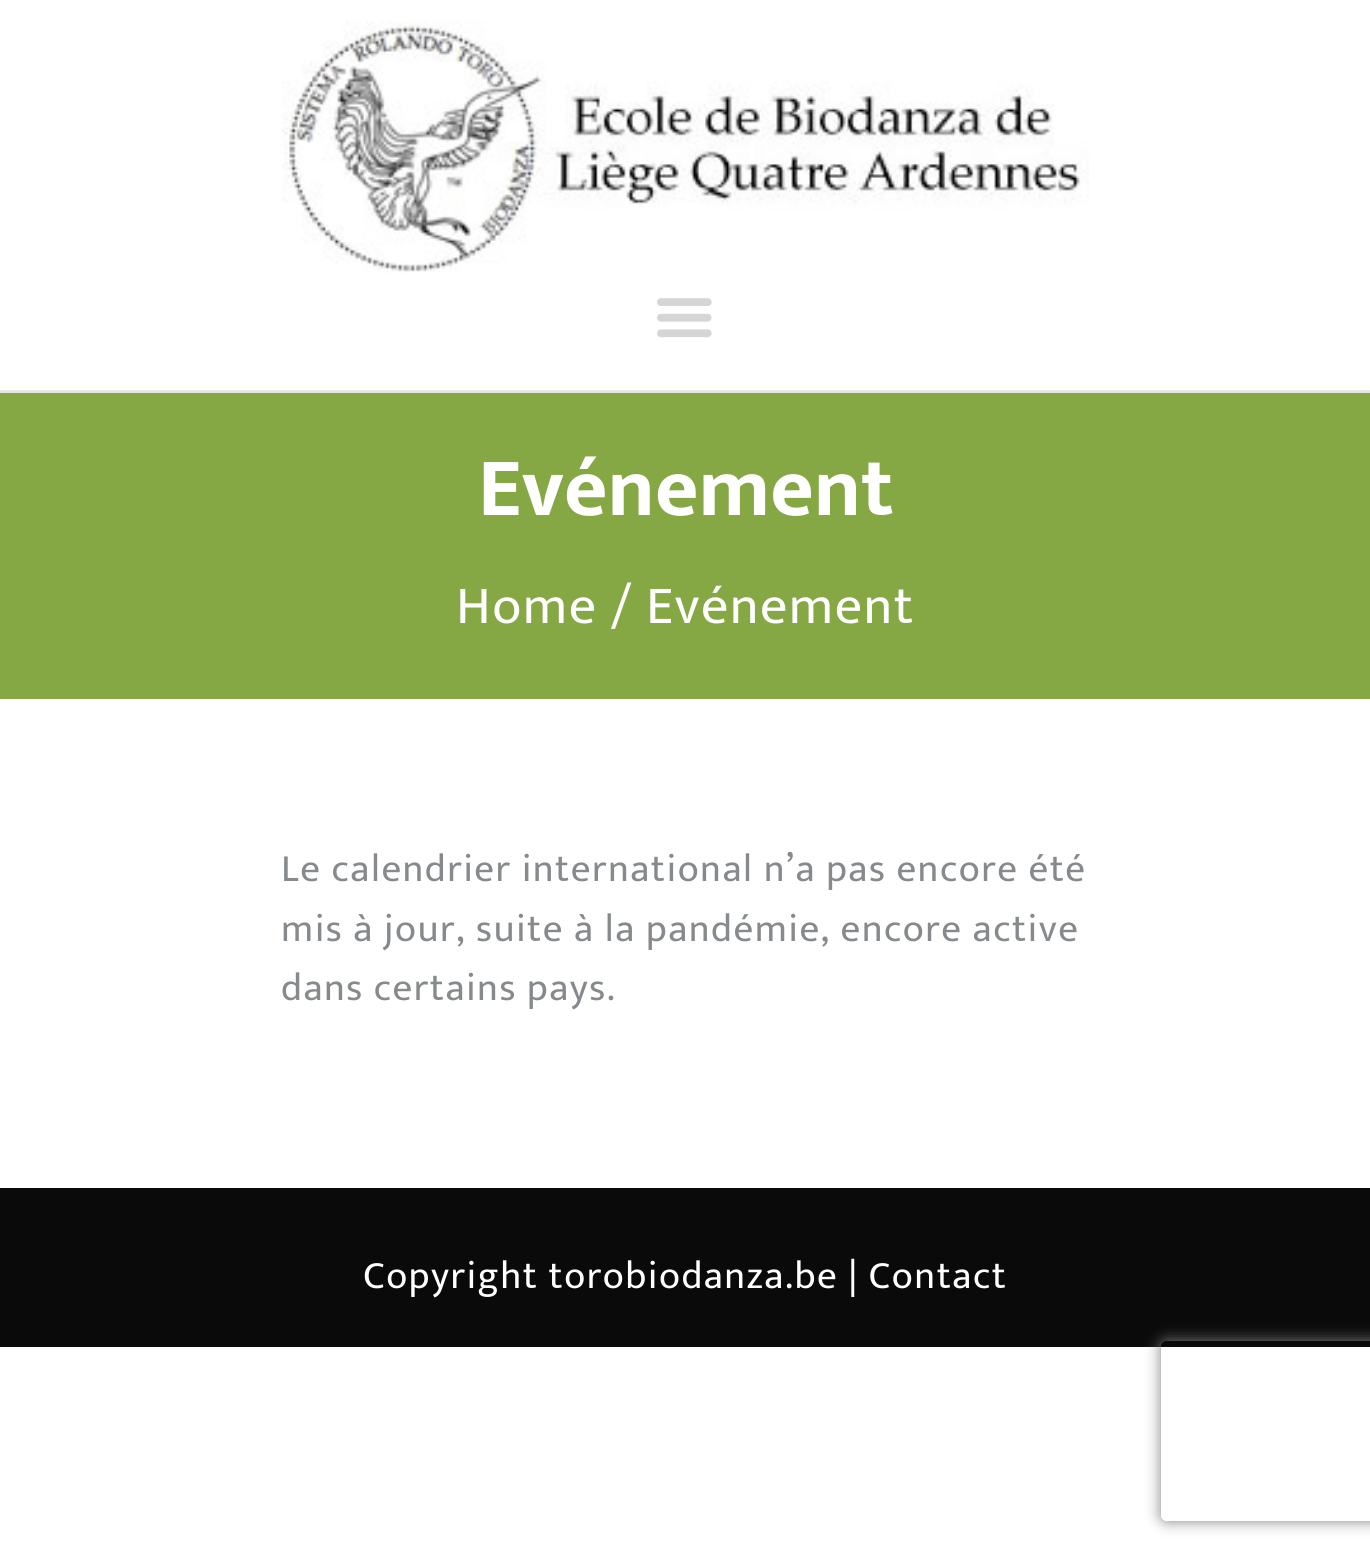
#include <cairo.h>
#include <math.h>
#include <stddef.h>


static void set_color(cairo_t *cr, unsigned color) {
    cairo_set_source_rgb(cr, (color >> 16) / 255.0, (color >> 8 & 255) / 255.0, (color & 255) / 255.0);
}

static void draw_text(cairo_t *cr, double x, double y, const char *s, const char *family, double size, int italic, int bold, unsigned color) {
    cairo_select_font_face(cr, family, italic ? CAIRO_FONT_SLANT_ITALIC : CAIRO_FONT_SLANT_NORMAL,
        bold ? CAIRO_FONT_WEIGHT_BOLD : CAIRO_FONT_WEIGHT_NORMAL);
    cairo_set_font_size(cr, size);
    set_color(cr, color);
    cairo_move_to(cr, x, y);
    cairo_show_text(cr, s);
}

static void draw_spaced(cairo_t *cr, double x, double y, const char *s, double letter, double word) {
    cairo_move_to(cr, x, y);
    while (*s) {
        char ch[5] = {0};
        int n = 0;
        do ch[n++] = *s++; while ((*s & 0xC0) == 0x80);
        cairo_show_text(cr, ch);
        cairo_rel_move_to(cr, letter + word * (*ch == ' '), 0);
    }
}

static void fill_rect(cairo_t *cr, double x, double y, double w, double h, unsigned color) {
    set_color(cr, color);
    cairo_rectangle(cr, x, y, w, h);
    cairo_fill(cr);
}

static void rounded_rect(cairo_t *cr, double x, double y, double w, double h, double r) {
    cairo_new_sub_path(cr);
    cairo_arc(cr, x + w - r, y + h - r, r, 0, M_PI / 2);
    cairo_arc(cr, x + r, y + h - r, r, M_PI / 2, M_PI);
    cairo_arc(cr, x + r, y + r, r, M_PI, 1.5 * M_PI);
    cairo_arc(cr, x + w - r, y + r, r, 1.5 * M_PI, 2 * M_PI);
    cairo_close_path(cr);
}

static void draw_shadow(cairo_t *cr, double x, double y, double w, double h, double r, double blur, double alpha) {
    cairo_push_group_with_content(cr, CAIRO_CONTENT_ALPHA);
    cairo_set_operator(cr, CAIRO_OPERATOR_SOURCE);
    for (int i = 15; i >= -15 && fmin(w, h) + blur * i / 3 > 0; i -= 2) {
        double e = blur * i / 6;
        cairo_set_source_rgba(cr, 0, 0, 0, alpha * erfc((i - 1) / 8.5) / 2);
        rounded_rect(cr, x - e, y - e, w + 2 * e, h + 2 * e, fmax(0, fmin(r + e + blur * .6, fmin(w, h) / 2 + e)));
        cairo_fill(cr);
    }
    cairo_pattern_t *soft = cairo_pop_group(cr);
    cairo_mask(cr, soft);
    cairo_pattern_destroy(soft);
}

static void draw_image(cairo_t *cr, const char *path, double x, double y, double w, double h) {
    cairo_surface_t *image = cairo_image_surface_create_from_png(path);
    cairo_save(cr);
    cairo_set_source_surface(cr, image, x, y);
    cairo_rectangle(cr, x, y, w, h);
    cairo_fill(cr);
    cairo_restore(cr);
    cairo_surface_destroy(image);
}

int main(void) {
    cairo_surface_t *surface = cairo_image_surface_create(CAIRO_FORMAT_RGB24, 1370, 1561);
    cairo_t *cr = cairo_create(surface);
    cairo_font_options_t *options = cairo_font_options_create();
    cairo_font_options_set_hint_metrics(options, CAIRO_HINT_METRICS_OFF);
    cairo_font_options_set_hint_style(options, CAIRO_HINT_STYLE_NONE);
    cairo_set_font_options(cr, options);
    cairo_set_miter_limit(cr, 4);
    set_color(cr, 0xFFFFFF);
    cairo_paint(cr);
    fill_rect(cr, 0, 390, 1370, 3, 0xE5E5E5);
    draw_image(cr, "assets/img1.png", 282, 21, 807, 252);
    draw_image(cr, "assets/img2.png", 657, 298, 55, 40);
    fill_rect(cr, 0, 393, 1370, 306, 0x86A844);
    draw_text(cr, 478, 515, "Evénement", "Mukta", 84, 0, 1, 0xFFFFFF);
    cairo_select_font_face(cr, "Mukta", CAIRO_FONT_SLANT_NORMAL, CAIRO_FONT_WEIGHT_NORMAL);
    cairo_set_font_size(cr, 54);
    draw_spaced(cr, 456, 623, "Home /", 1.5, 0);
    draw_spaced(cr, 646, 623, "Evénement", 1.5, 0);
    cairo_set_font_size(cr, 39);
    set_color(cr, 0x868A8C);
    draw_spaced(cr, 281, 881, "Le calendrier international n’a pas encore été", 1.5, 0);
    draw_spaced(cr, 281, 941, "mis à jour, suite à la pandémie, encore active", 1.5, 0);
    draw_spaced(cr, 281, 1000, "dans certains pays.", 1.5, 0);
    fill_rect(cr, 0, 1188, 1370, 159, 0x0A0A0A);
    set_color(cr, 0xFFFFFF);
    draw_spaced(cr, 363, 1288, "Copyright torobiodanza.be | Contact", 1.5, 0);
    cairo_save(cr);
    cairo_set_fill_rule(cr, CAIRO_FILL_RULE_EVEN_ODD);
    cairo_new_path(cr);
    cairo_move_to(cr, 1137, 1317);
    cairo_line_to(cr, 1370, 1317);
    cairo_line_to(cr, 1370, 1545);
    cairo_line_to(cr, 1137, 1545);
    cairo_close_path(cr);
    cairo_move_to(cr, 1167, 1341);
    cairo_line_to(cr, 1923, 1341);
    cairo_curve_to(cr, 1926.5, 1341, 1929, 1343.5, 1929, 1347);
    cairo_line_to(cr, 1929, 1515);
    cairo_curve_to(cr, 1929, 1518.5, 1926.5, 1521, 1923, 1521);
    cairo_line_to(cr, 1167, 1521);
    cairo_curve_to(cr, 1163.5, 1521, 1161, 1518.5, 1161, 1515);
    cairo_line_to(cr, 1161, 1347);
    cairo_curve_to(cr, 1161, 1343.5, 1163.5, 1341, 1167, 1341);
    cairo_close_path(cr);
    cairo_clip(cr);
    set_color(cr, 0x808080);
    draw_shadow(cr, 1161, 1341, 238, 180, 6, 7.5, 1);
    cairo_restore(cr);
    cairo_surface_write_to_png(surface, "output.png");
    cairo_font_options_destroy(options);
    cairo_destroy(cr);
    cairo_surface_destroy(surface);
    return 0;
}
